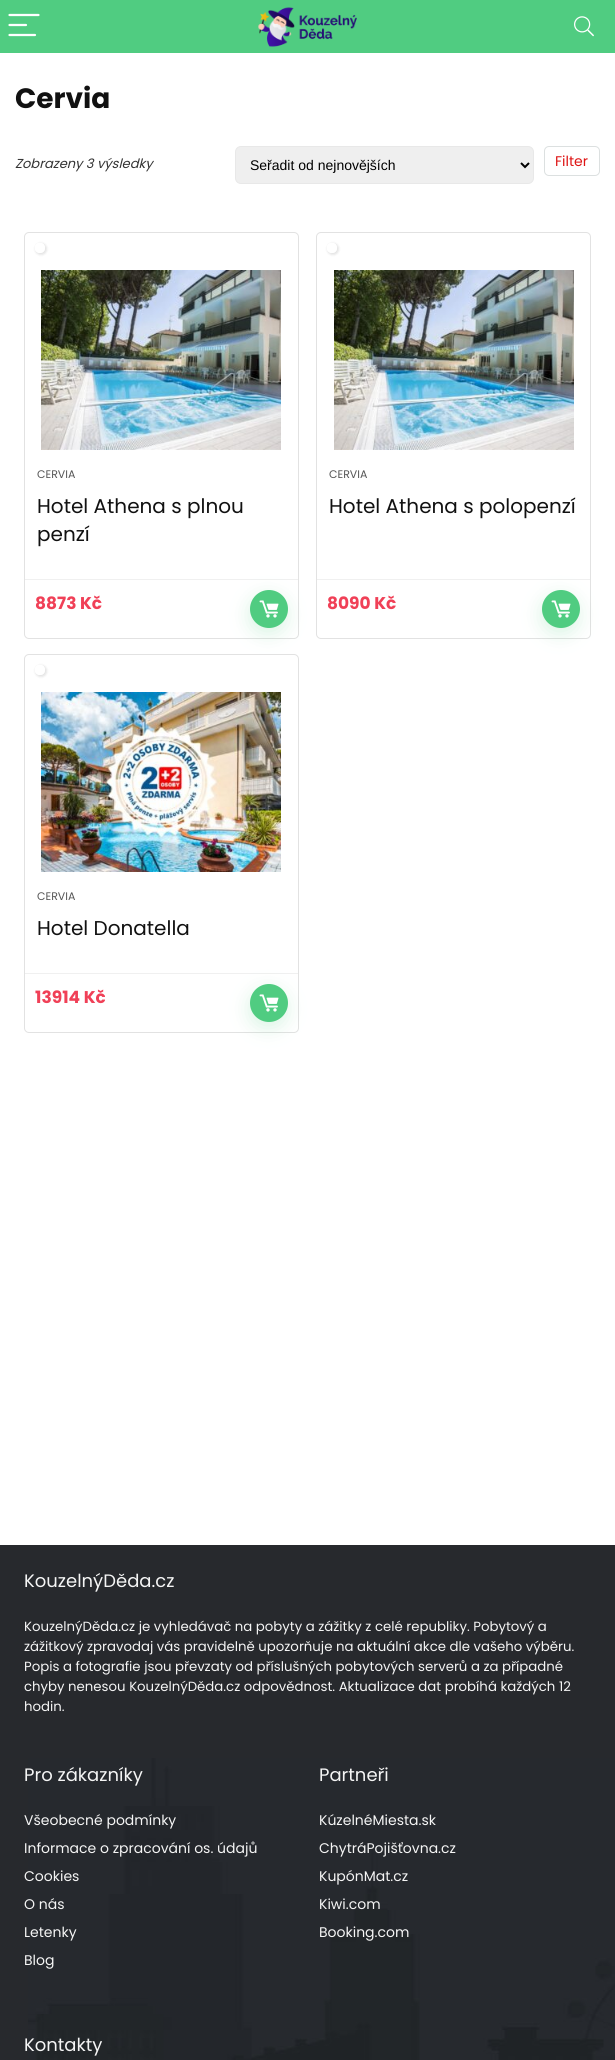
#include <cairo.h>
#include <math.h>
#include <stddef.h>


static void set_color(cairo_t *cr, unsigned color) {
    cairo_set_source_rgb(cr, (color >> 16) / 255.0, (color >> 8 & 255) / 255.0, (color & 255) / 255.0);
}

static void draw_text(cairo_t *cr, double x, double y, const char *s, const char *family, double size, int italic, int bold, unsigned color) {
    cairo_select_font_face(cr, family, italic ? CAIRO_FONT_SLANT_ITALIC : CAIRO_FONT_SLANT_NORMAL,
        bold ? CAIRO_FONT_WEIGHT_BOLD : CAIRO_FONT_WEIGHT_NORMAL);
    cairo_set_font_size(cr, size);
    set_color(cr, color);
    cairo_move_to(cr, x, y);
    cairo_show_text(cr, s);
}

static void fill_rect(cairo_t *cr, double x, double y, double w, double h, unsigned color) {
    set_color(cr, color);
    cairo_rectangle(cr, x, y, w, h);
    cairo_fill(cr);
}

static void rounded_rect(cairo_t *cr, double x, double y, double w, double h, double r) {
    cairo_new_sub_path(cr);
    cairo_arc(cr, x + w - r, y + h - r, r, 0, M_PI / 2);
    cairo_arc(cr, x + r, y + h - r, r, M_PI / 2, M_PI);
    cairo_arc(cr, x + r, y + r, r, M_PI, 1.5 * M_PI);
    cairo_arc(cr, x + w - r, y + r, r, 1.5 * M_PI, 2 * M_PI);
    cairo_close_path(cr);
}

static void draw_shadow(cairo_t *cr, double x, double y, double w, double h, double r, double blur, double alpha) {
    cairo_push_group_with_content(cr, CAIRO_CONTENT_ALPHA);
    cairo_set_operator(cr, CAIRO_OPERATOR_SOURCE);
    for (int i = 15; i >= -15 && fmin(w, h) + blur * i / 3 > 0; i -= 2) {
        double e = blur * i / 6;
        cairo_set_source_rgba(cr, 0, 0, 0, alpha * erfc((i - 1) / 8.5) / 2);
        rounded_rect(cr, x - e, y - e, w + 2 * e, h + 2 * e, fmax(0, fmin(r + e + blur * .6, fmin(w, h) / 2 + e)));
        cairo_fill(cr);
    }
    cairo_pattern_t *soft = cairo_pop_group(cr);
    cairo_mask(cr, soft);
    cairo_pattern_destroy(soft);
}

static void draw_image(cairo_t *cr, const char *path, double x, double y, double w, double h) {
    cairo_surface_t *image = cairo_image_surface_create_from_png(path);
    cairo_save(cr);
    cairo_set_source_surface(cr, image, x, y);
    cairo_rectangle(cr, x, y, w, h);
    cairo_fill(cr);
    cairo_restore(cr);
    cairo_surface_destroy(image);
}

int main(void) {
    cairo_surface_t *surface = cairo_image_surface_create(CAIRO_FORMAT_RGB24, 615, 2060);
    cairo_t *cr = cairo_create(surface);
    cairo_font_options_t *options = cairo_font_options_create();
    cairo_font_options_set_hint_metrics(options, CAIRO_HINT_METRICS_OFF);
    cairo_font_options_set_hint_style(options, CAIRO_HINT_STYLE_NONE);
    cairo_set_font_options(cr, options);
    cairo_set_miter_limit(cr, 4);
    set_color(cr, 0xFFFFFF);
    cairo_paint(cr);
    fill_rect(cr, 0, 0, 615, 53, 0x50CC81);
    cairo_new_path(cr);
    cairo_move_to(cr, 9.5, 15);
    cairo_line_to(cr, 38.5, 15);
    cairo_move_to(cr, 9.5, 25);
    cairo_line_to(cr, 26, 25);
    cairo_move_to(cr, 9.5, 35);
    cairo_line_to(cr, 35, 35);
    set_color(cr, 0xFFFFFF);
    cairo_set_line_width(cr, 2.2);
    cairo_set_line_cap(cr, CAIRO_LINE_CAP_ROUND);
    cairo_stroke(cr);
    draw_image(cr, "assets/img1.png", 258, 7, 99, 40);
    draw_image(cr, "assets/img2.png", 574, 16, 20, 21);
    draw_text(cr, 15, 108, "Cervia", "Poppins", 28, 0, 1, 0x111111);
    draw_text(cr, 15, 168, "Zobrazeny 3 výsledky", "Poppins", 13, 1, 0, 0x333333);
    set_color(cr, 0xEFEFEF);
    rounded_rect(cr, 235.5, 146.5, 298, 37, 5.5);
    cairo_fill_preserve(cr);
    set_color(cr, 0xE8E8E8);
    cairo_set_line_width(cr, 1);
    cairo_set_line_cap(cr, CAIRO_LINE_CAP_BUTT);
    cairo_stroke(cr);
    cairo_new_path(cr);
    cairo_move_to(cr, 521, 163);
    cairo_line_to(cr, 525, 167);
    cairo_line_to(cr, 529, 163);
    set_color(cr, 0x000000);
    cairo_set_line_width(cr, 2);
    cairo_stroke(cr);
    draw_text(cr, 250, 170, "Seřadit od nejnovějších", "Liberation Sans", 14, 0, 0, 0x000000);
    rounded_rect(cr, 544.5, 146.5, 55, 29, 4.5);
    set_color(cr, 0xDCE0E0);
    cairo_set_line_width(cr, 1);
    cairo_stroke(cr);
    draw_text(cr, 555, 166, "Filter", "Poppins", 14, 0, 0, 0xDE1414);
    rounded_rect(cr, 24.5, 232.5, 274, 406, 4.5);
    set_color(cr, 0xE2E2E2);
    cairo_stroke(cr);
    cairo_save(cr);
    cairo_set_fill_rule(cr, CAIRO_FILL_RULE_EVEN_ODD);
    cairo_new_path(cr);
    cairo_move_to(cr, 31, 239);
    cairo_line_to(cr, 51, 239);
    cairo_line_to(cr, 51, 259);
    cairo_line_to(cr, 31, 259);
    cairo_close_path(cr);
    cairo_move_to(cr, 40, 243);
    cairo_curve_to(cr, 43, 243, 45, 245, 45, 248);
    cairo_curve_to(cr, 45, 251, 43, 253, 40, 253);
    cairo_curve_to(cr, 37, 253, 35, 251, 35, 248);
    cairo_curve_to(cr, 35, 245, 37, 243, 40, 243);
    cairo_close_path(cr);
    cairo_clip(cr);
    set_color(cr, 0x000000);
    draw_shadow(cr, 35, 243, 12, 12, 6, 1, 0.1);
    cairo_restore(cr);
    cairo_set_source_rgba(cr, 1, 1, 1, 0.78);
    cairo_arc(cr, 40, 248, 5, 0, 2 * M_PI);
    cairo_fill(cr);
    draw_image(cr, "assets/img3.png", 41, 270, 240, 180);
    draw_text(cr, 37, 478, "CERVIA", "Poppins", 11, 0, 0, 0x555555);
    draw_text(cr, 37, 513, "Hotel Athena s plnou", "Poppins", 20, 0, 0, 0x111111);
    draw_text(cr, 37, 541, "penzí", "Poppins", 20, 0, 0, 0x111111);
    fill_rect(cr, 25, 579, 273, 1, 0xF0F0F0);
    draw_text(cr, 35, 609, "8873 Kč", "Poppins", 17, 0, 1, 0xF04057);
    set_color(cr, 0x50CC81);
    draw_shadow(cr, 249, 596, 38, 38, 19, 9.5, 0.2);
    set_color(cr, 0x50CC81);
    cairo_arc(cr, 269, 609, 19, 0, 2 * M_PI);
    cairo_fill(cr);
    draw_image(cr, "assets/img4.png", 259, 600, 20, 18);
    rounded_rect(cr, 316.5, 232.5, 274, 406, 4.5);
    set_color(cr, 0xE2E2E2);
    cairo_stroke(cr);
    cairo_save(cr);
    cairo_set_fill_rule(cr, CAIRO_FILL_RULE_EVEN_ODD);
    cairo_new_path(cr);
    cairo_move_to(cr, 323, 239);
    cairo_line_to(cr, 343, 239);
    cairo_line_to(cr, 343, 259);
    cairo_line_to(cr, 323, 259);
    cairo_close_path(cr);
    cairo_move_to(cr, 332, 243);
    cairo_curve_to(cr, 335, 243, 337, 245, 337, 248);
    cairo_curve_to(cr, 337, 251, 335, 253, 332, 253);
    cairo_curve_to(cr, 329, 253, 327, 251, 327, 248);
    cairo_curve_to(cr, 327, 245, 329, 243, 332, 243);
    cairo_close_path(cr);
    cairo_clip(cr);
    set_color(cr, 0x000000);
    draw_shadow(cr, 327, 243, 12, 12, 6, 1, 0.1);
    cairo_restore(cr);
    cairo_set_source_rgba(cr, 1, 1, 1, 0.78);
    cairo_arc(cr, 332, 248, 5, 0, 2 * M_PI);
    cairo_fill(cr);
    draw_image(cr, "assets/img3.png", 334, 270, 240, 180);
    draw_text(cr, 329, 478, "CERVIA", "Poppins", 11, 0, 0, 0x555555);
    draw_text(cr, 329, 513, "Hotel Athena s polopenzí", "Poppins", 20, 0, 0, 0x111111);
    fill_rect(cr, 317, 579, 273, 1, 0xF0F0F0);
    draw_text(cr, 327, 609, "8090 Kč", "Poppins", 17, 0, 1, 0xF04057);
    set_color(cr, 0x50CC81);
    draw_shadow(cr, 541, 596, 38, 38, 19, 9.5, 0.2);
    set_color(cr, 0x50CC81);
    cairo_arc(cr, 561, 609, 19, 0, 2 * M_PI);
    cairo_fill(cr);
    draw_image(cr, "assets/img4.png", 551, 600, 20, 18);
    rounded_rect(cr, 24.5, 654.5, 274, 378, 4.5);
    set_color(cr, 0xE2E2E2);
    cairo_stroke(cr);
    cairo_save(cr);
    cairo_set_fill_rule(cr, CAIRO_FILL_RULE_EVEN_ODD);
    cairo_new_path(cr);
    cairo_move_to(cr, 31, 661);
    cairo_line_to(cr, 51, 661);
    cairo_line_to(cr, 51, 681);
    cairo_line_to(cr, 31, 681);
    cairo_close_path(cr);
    cairo_move_to(cr, 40, 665);
    cairo_curve_to(cr, 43, 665, 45, 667, 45, 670);
    cairo_curve_to(cr, 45, 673, 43, 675, 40, 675);
    cairo_curve_to(cr, 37, 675, 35, 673, 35, 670);
    cairo_curve_to(cr, 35, 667, 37, 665, 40, 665);
    cairo_close_path(cr);
    cairo_clip(cr);
    set_color(cr, 0x000000);
    draw_shadow(cr, 35, 665, 12, 12, 6, 1, 0.1);
    cairo_restore(cr);
    cairo_set_source_rgba(cr, 1, 1, 1, 0.78);
    cairo_arc(cr, 40, 670, 5, 0, 2 * M_PI);
    cairo_fill(cr);
    draw_image(cr, "assets/img5.png", 41, 692, 240, 180);
    draw_text(cr, 37, 900, "CERVIA", "Poppins", 11, 0, 0, 0x555555);
    draw_text(cr, 37, 935, "Hotel Donatella", "Poppins", 20, 0, 0, 0x111111);
    fill_rect(cr, 25, 973, 273, 1, 0xF0F0F0);
    draw_text(cr, 35, 1003, "13914 Kč", "Poppins", 17, 0, 1, 0xF04057);
    set_color(cr, 0x50CC81);
    draw_shadow(cr, 249, 990, 38, 38, 19, 9.5, 0.2);
    set_color(cr, 0x50CC81);
    cairo_arc(cr, 269, 1003, 19, 0, 2 * M_PI);
    cairo_fill(cr);
    draw_image(cr, "assets/img4.png", 259, 994, 20, 18);
    fill_rect(cr, 0, 1545, 615, 515, 0x27292D);
    draw_image(cr, "assets/img6.png", 28, 1758, 587, 302);
    draw_text(cr, 24, 1587, "KouzelnýDěda.cz", "Poppins", 18, 0, 0, 0xF5F5F5);
    draw_text(cr, 24, 1631, "KouzelnýDěda.cz je vyhledávač na pobyty a zážitky z celé republiky. Pobytový a", "Poppins", 13.3, 0, 0, 0xF5F5F5);
    draw_text(cr, 24, 1651, "zážitkový zpravodaj vás pravidelně upozorňuje na aktuální akce dle vašeho výběru.", "Poppins", 13.3, 0, 0, 0xF5F5F5);
    draw_text(cr, 24, 1671, "Popis a fotografie jsou převzaty od příslušných pobytových serverů a za případné", "Poppins", 13.3, 0, 0, 0xF5F5F5);
    draw_text(cr, 24, 1691, "chyby nenesou KouzelnýDěda.cz odpovědnost. Aktualizace dat probíhá každých 12", "Poppins", 13.3, 0, 0, 0xF5F5F5);
    draw_text(cr, 24, 1711, "hodin.", "Poppins", 13.3, 0, 0, 0xF5F5F5);
    draw_text(cr, 24, 1781, "Pro zákazníky", "Poppins", 18, 0, 0, 0xF5F5F5);
    draw_text(cr, 24, 1825, "Všeobecné podmínky", "Poppins", 14, 0, 0, 0xF5F5F5);
    draw_text(cr, 24, 1853, "Informace o zpracování os. údajů", "Poppins", 14, 0, 0, 0xF5F5F5);
    draw_text(cr, 24, 1881, "Cookies", "Poppins", 14, 0, 0, 0xF5F5F5);
    draw_text(cr, 24, 1909, "O nás", "Poppins", 14, 0, 0, 0xF5F5F5);
    draw_text(cr, 24, 1937, "Letenky", "Poppins", 14, 0, 0, 0xF5F5F5);
    draw_text(cr, 24, 1965, "Blog", "Poppins", 14, 0, 0, 0xF5F5F5);
    draw_text(cr, 319, 1781, "Partneři", "Poppins", 18, 0, 0, 0xF5F5F5);
    draw_text(cr, 319, 1825, "KúzelnéMiesta.sk", "Poppins", 14, 0, 0, 0xF5F5F5);
    draw_text(cr, 319, 1853, "ChytráPojišťovna.cz", "Poppins", 14, 0, 0, 0xF5F5F5);
    draw_text(cr, 319, 1881, "KupónMat.cz", "Poppins", 14, 0, 0, 0xF5F5F5);
    draw_text(cr, 319, 1909, "Kiwi.com", "Poppins", 14, 0, 0, 0xF5F5F5);
    draw_text(cr, 319, 1937, "Booking.com", "Poppins", 14, 0, 0, 0xF5F5F5);
    draw_text(cr, 24, 2051, "Kontakty", "Poppins", 18, 0, 0, 0xF5F5F5);
    cairo_surface_write_to_png(surface, "output.png");
    cairo_font_options_destroy(options);
    cairo_destroy(cr);
    cairo_surface_destroy(surface);
    return 0;
}
